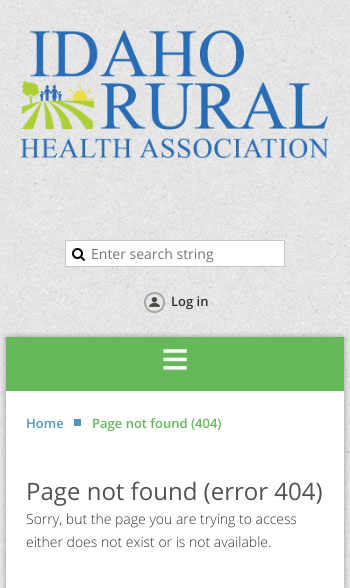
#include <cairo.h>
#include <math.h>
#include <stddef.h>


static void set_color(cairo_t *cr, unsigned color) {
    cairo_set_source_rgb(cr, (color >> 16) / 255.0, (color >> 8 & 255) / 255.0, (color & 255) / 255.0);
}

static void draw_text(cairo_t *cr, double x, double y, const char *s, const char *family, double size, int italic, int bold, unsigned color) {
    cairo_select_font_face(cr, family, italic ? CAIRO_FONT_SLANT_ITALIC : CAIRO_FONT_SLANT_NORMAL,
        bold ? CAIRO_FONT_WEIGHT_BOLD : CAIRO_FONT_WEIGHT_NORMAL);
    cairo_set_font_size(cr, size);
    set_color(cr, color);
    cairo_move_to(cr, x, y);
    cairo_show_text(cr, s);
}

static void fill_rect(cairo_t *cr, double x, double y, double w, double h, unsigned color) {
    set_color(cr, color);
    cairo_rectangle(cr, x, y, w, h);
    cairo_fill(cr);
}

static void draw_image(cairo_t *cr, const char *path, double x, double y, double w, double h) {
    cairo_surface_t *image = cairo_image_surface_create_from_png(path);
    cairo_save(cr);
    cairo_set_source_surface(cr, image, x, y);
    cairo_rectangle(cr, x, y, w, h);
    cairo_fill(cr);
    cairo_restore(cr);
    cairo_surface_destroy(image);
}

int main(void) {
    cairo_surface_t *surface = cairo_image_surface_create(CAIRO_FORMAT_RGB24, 350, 588);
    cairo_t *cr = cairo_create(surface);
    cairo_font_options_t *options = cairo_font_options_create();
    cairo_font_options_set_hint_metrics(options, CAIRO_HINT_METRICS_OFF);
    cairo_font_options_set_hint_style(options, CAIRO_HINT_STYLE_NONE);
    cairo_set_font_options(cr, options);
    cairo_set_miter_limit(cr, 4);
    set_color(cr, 0xFFFFFF);
    cairo_paint(cr);
    draw_image(cr, "assets/img1.png", 0, 0, 350, 588);
    draw_image(cr, "assets/img2.png", 20, 29, 310, 130);
    fill_rect(cr, 20, 36, 1, 1, 0xFFFFFF);
    cairo_rectangle(cr, 65.5, 240.5, 219, 26);
    cairo_fill_preserve(cr);
    set_color(cr, 0xC6C6C6);
    cairo_set_line_width(cr, 1);
    cairo_stroke(cr);
    draw_image(cr, "assets/img3.png", 72, 248, 13, 13);
    draw_text(cr, 91, 259, "Enter search string", "Open Sans", 14, 0, 0, 0x757575);
    draw_image(cr, "assets/img4.png", 144, 292, 21, 21);
    draw_text(cr, 171, 306, "Log in", "Open Sans SemiBold", 13, 0, 0, 0x333333);
    draw_image(cr, "assets/img5.png", 3, 333, 344, 4);
    draw_image(cr, "assets/img6.png", 11, 332, 328, 5);
    draw_image(cr, "assets/img7.png", 1, 337, 348, 54);
    fill_rect(cr, 6, 337, 338, 54, 0x66B95B);
    draw_text(cr, 161, 376, "≡", "Liberation Serif", 50, 0, 1, 0xFFFFFF);
    draw_image(cr, "assets/img8.png", 1, 391, 348, 44);
    fill_rect(cr, 6, 391, 338, 44, 0xFFFFFF);
    draw_text(cr, 26, 428, "Home", "Open Sans SemiBold", 13, 0, 0, 0x5297BF);
    fill_rect(cr, 74, 419, 7, 7, 0x5297BF);
    draw_text(cr, 92, 428, "Page not found (404)", "Open Sans SemiBold", 13, 0, 0, 0x66B95B);
    draw_image(cr, "assets/img9.png", 1, 435, 348, 153);
    fill_rect(cr, 6, 435, 338, 153, 0xFFFFFF);
    draw_text(cr, 26, 500, "Page not found (error 404)", "Open Sans", 24, 0, 0, 0x525252);
    draw_text(cr, 26, 524, "Sorry, but the page you are trying to access", "Open Sans Light", 14, 0, 0, 0x333333);
    draw_text(cr, 26, 547, "either does not exist or is not available.", "Open Sans Light", 14, 0, 0, 0x333333);
    cairo_surface_write_to_png(surface, "output.png");
    cairo_font_options_destroy(options);
    cairo_destroy(cr);
    cairo_surface_destroy(surface);
    return 0;
}
